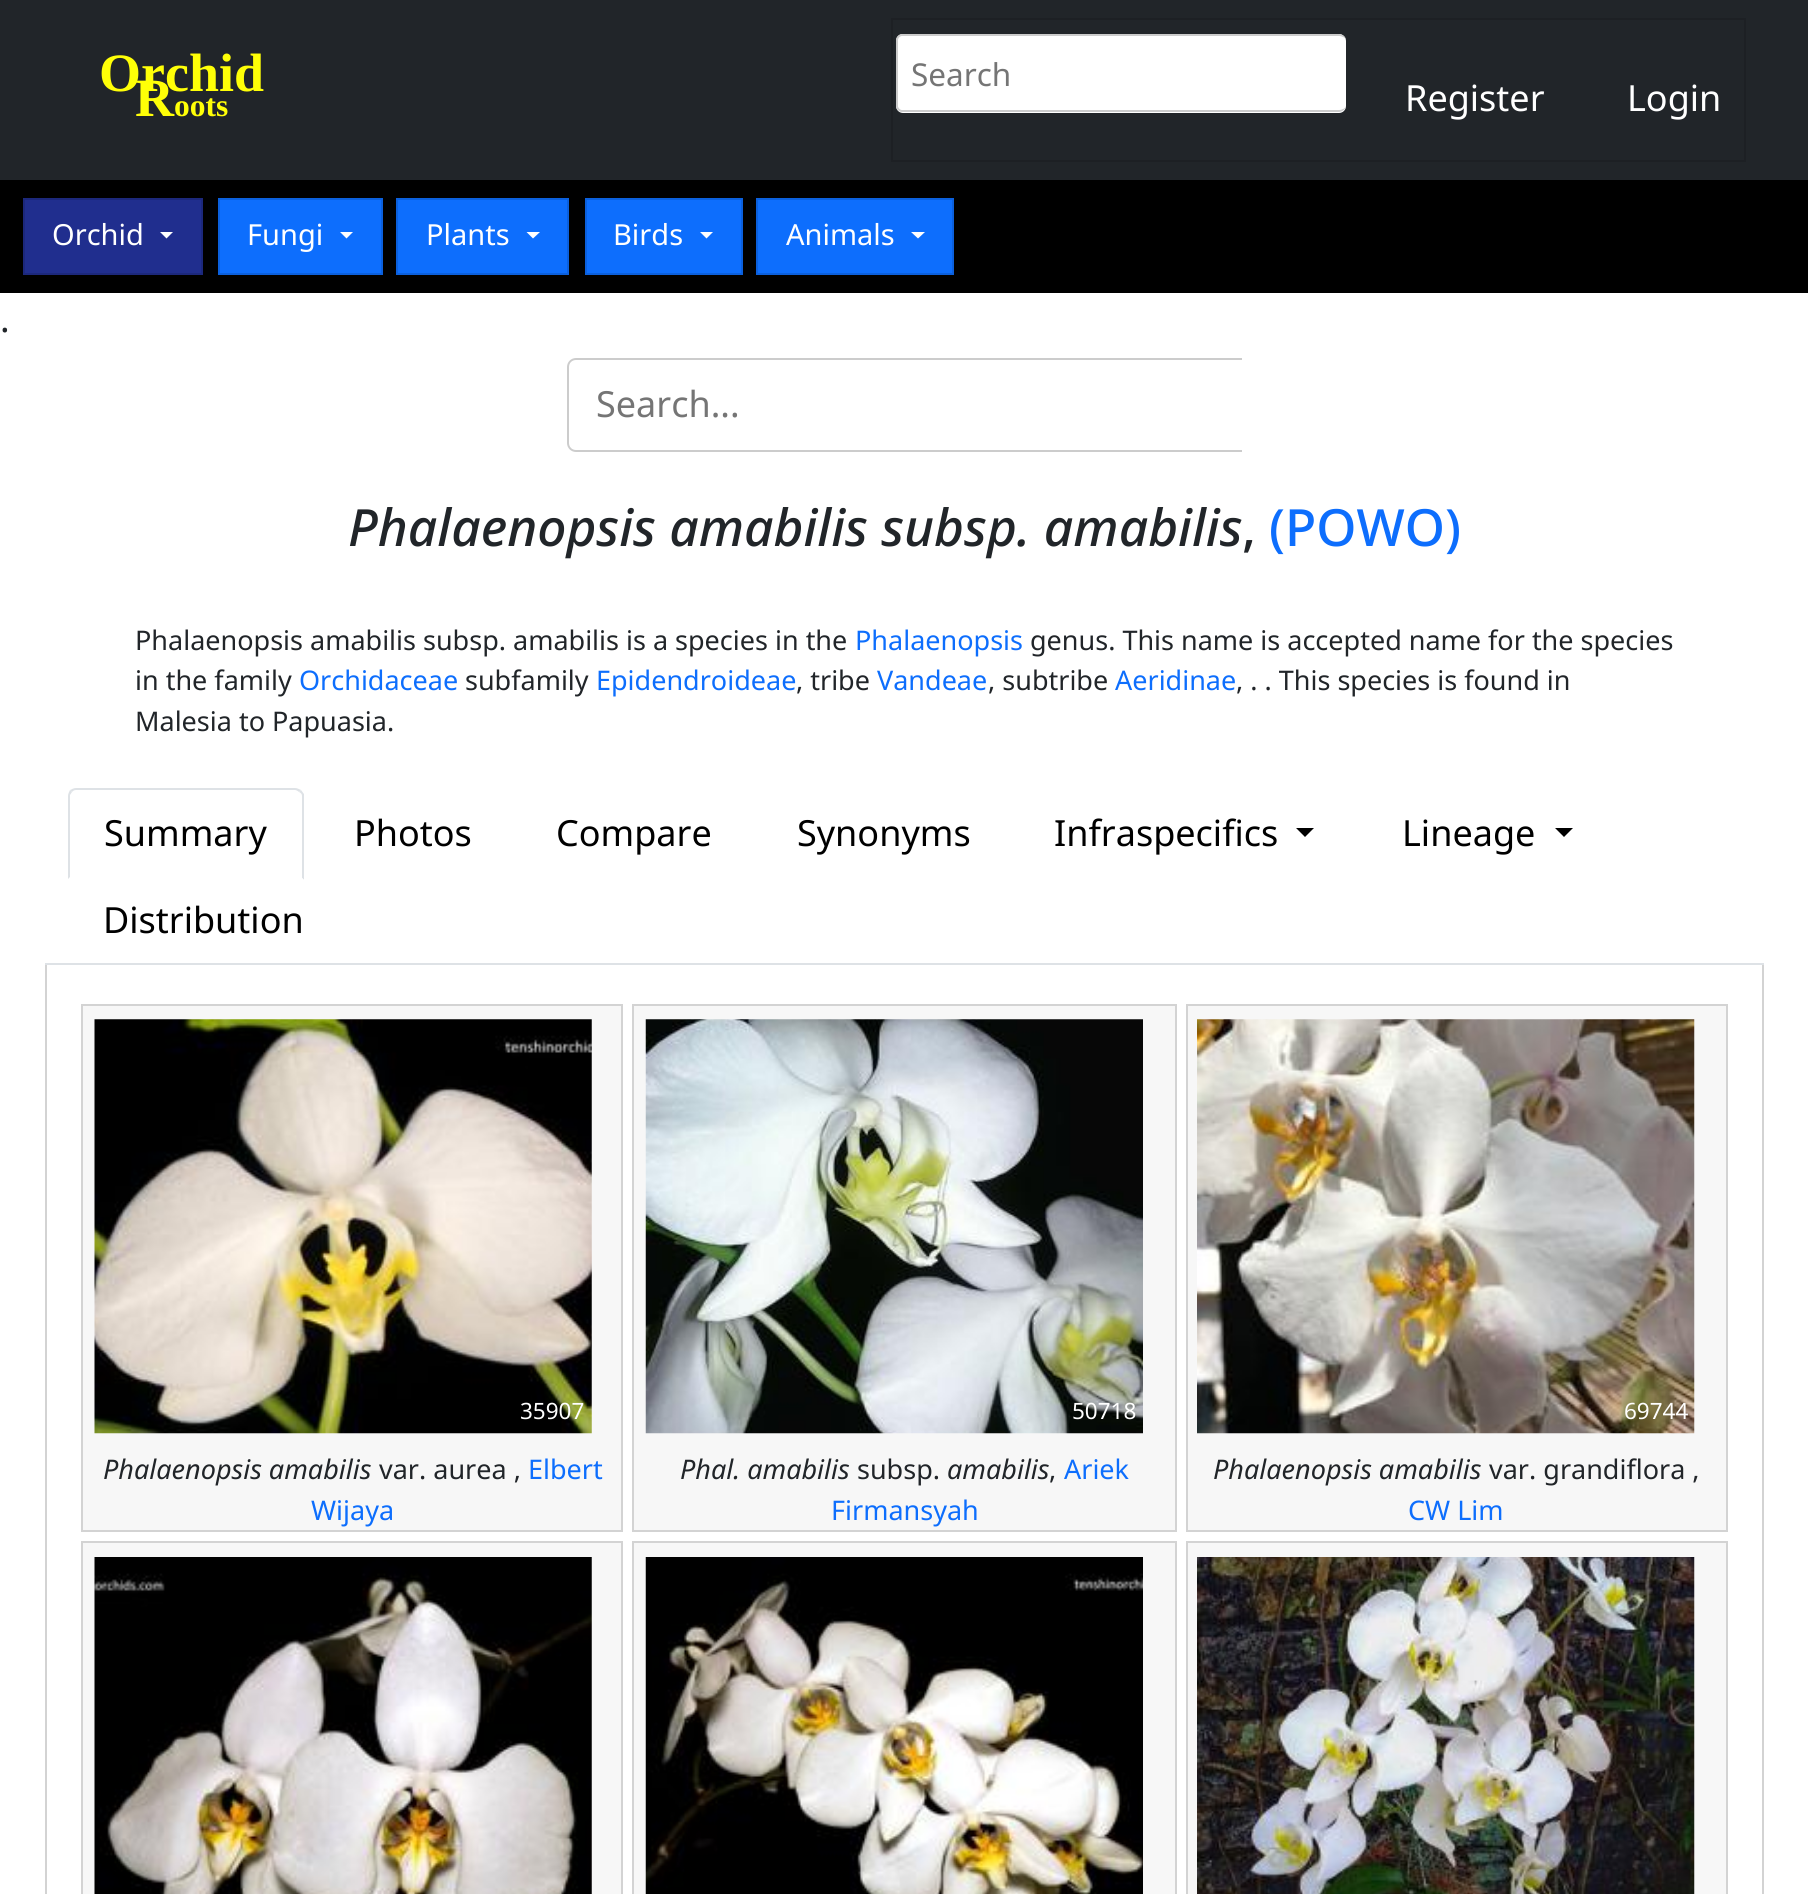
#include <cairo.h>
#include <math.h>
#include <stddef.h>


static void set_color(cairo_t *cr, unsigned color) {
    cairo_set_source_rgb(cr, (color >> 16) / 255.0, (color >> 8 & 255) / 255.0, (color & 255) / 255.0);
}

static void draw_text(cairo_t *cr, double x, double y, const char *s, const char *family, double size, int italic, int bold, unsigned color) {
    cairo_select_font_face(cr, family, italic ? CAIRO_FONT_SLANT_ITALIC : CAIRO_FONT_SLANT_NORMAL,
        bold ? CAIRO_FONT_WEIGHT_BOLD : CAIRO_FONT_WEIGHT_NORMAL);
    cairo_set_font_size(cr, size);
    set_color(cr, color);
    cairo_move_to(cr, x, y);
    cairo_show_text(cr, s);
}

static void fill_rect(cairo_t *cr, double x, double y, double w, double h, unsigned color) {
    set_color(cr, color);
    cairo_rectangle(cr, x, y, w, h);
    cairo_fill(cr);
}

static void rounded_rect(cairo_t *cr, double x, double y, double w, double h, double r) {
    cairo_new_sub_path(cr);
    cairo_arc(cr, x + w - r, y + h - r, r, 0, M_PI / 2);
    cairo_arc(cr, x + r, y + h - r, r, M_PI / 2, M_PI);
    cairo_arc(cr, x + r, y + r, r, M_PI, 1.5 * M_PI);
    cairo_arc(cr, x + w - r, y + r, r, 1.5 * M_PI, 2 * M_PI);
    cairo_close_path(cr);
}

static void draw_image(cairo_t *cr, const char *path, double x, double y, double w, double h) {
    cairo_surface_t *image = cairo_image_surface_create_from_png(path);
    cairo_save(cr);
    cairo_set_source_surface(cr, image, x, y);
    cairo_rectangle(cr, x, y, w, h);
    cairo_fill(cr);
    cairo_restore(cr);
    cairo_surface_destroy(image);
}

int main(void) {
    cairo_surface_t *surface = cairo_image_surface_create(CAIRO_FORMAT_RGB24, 1808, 1894);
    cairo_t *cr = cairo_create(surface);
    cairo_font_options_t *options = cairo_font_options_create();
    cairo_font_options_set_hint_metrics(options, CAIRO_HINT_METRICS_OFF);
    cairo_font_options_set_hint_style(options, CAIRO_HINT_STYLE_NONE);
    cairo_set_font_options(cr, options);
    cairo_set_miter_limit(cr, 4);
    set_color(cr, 0xFFFFFF);
    cairo_paint(cr);
    fill_rect(cr, 0, 0, 1808, 180, 0x212529);
    draw_text(cr, 99, 91, "Orchid", "Liberation Serif", 54, 0, 1, 0xFFFF07);
    draw_text(cr, 135, 116, "R", "Liberation Serif", 54, 0, 1, 0xFFFF07);
    draw_text(cr, 174, 116, "oots", "Liberation Serif", 31.5, 0, 1, 0xFFFF07);
    cairo_rectangle(cr, 892, 19, 853, 142);
    set_color(cr, 0x1D2024);
    cairo_stroke(cr);
    set_color(cr, 0xFFFFFF);
    rounded_rect(cr, 896, 34, 450, 79, 7);
    cairo_fill(cr);
    set_color(cr, 0xCCCCCC);
    cairo_set_fill_rule(cr, CAIRO_FILL_RULE_EVEN_ODD);
    cairo_new_path(cr);
    cairo_move_to(cr, 902, 34);
    cairo_line_to(cr, 1339, 34);
    cairo_curve_to(cr, 1342, 34, 1346, 37, 1346, 40);
    cairo_line_to(cr, 1346, 106);
    cairo_curve_to(cr, 1346, 109, 1342, 112, 1339, 112);
    cairo_line_to(cr, 902, 112);
    cairo_curve_to(cr, 899, 112, 896, 109, 896, 106);
    cairo_line_to(cr, 896, 40);
    cairo_curve_to(cr, 896, 37, 899, 34, 902, 34);
    cairo_close_path(cr);
    cairo_move_to(cr, 902, 36);
    cairo_line_to(cr, 1339, 36);
    cairo_curve_to(cr, 1342, 36, 1346, 38, 1346, 40);
    cairo_line_to(cr, 1346, 106);
    cairo_curve_to(cr, 1346, 108, 1342, 110, 1339, 110);
    cairo_line_to(cr, 902, 110);
    cairo_curve_to(cr, 900, 110, 898, 108, 898, 106);
    cairo_line_to(cr, 898, 40);
    cairo_curve_to(cr, 898, 38, 900, 36, 902, 36);
    cairo_close_path(cr);
    cairo_fill(cr);
    draw_text(cr, 911, 86, "Search", "Noto Sans", 31.5, 0, 0, 0x757575);
    draw_text(cr, 1405, 111, "Register", "Noto Sans", 36, 0, 0, 0xFFFFFF);
    draw_text(cr, 1627, 111, "Login", "Noto Sans", 36, 0, 0, 0xFFFFFF);
    fill_rect(cr, 0, 180, 1808, 113, 0x000000);
    set_color(cr, 0x202E8E);
    cairo_rectangle(cr, 24, 199, 178, 75);
    cairo_fill_preserve(cr);
    set_color(cr, 0x1C287C);
    cairo_stroke(cr);
    draw_text(cr, 52, 245, "Orchid", "Noto Sans", 29, 0, 0, 0xFFFFFF);
    cairo_set_fill_rule(cr, CAIRO_FILL_RULE_WINDING);
    cairo_new_path(cr);
    cairo_move_to(cr, 160, 232);
    cairo_line_to(cr, 173, 232);
    cairo_line_to(cr, 166.5, 238.5);
    cairo_close_path(cr);
    cairo_fill(cr);
    set_color(cr, 0x0D6EFD);
    cairo_rectangle(cr, 219, 199, 163, 75);
    cairo_fill_preserve(cr);
    set_color(cr, 0x0B60DD);
    cairo_stroke(cr);
    draw_text(cr, 247, 245, "Fungi", "Noto Sans", 29, 0, 0, 0xFFFFFF);
    cairo_new_path(cr);
    cairo_move_to(cr, 340, 232);
    cairo_line_to(cr, 353, 232);
    cairo_line_to(cr, 346.5, 238.5);
    cairo_close_path(cr);
    cairo_fill(cr);
    set_color(cr, 0x0D6EFD);
    cairo_rectangle(cr, 397, 199, 171, 75);
    cairo_fill_preserve(cr);
    set_color(cr, 0x0B60DD);
    cairo_stroke(cr);
    draw_text(cr, 426, 245, "Plants", "Noto Sans", 29, 0, 0, 0xFFFFFF);
    cairo_new_path(cr);
    cairo_move_to(cr, 526.5, 232);
    cairo_line_to(cr, 540, 232);
    cairo_line_to(cr, 533, 238.5);
    cairo_close_path(cr);
    cairo_fill(cr);
    set_color(cr, 0x0D6EFD);
    cairo_rectangle(cr, 586, 199, 156, 75);
    cairo_fill_preserve(cr);
    set_color(cr, 0x0B60DD);
    cairo_stroke(cr);
    draw_text(cr, 613, 245, "Birds", "Noto Sans", 29, 0, 0, 0xFFFFFF);
    cairo_new_path(cr);
    cairo_move_to(cr, 700, 232);
    cairo_line_to(cr, 713, 232);
    cairo_line_to(cr, 706.5, 238.5);
    cairo_close_path(cr);
    cairo_fill(cr);
    set_color(cr, 0x0D6EFD);
    cairo_rectangle(cr, 757, 199, 196, 75);
    cairo_fill_preserve(cr);
    set_color(cr, 0x0B60DD);
    cairo_stroke(cr);
    draw_text(cr, 786, 245, "Animals", "Noto Sans", 29, 0, 0, 0xFFFFFF);
    cairo_new_path(cr);
    cairo_move_to(cr, 911, 232);
    cairo_line_to(cr, 925, 232);
    cairo_line_to(cr, 918, 238.5);
    cairo_close_path(cr);
    cairo_fill(cr);
    draw_text(cr, 0, 332, ".", "Noto Sans", 36, 0, 0, 0x212529);
    set_color(cr, 0xCCCCCC);
    cairo_set_fill_rule(cr, CAIRO_FILL_RULE_EVEN_ODD);
    cairo_new_path(cr);
    cairo_move_to(cr, 576, 358);
    cairo_line_to(cr, 1242, 358);
    cairo_line_to(cr, 1242, 452);
    cairo_line_to(cr, 576, 452);
    cairo_curve_to(cr, 571, 452, 567, 448, 567, 443);
    cairo_line_to(cr, 567, 367);
    cairo_curve_to(cr, 567, 362, 571, 358, 576, 358);
    cairo_close_path(cr);
    cairo_move_to(cr, 576, 360);
    cairo_line_to(cr, 1242, 360);
    cairo_line_to(cr, 1242, 450);
    cairo_line_to(cr, 576, 450);
    cairo_curve_to(cr, 572, 450, 569, 447, 569, 443);
    cairo_line_to(cr, 569, 367);
    cairo_curve_to(cr, 569, 363, 572, 360, 576, 360);
    cairo_close_path(cr);
    cairo_fill(cr);
    draw_text(cr, 596, 417, "Search...", "Noto Sans", 36, 0, 0, 0x757575);
    draw_text(cr, 348, 546, "Phalaenopsis amabilis subsp. amabilis", "Noto Sans Medium", 51.3, 1, 0, 0x212529);
    draw_text(cr, 1242, 546, ",", "Noto Sans Medium", 51.3, 0, 0, 0x212529);
    draw_text(cr, 1269, 546, "(POWO)", "Noto Sans Medium", 51.3, 0, 0, 0x0D6EFD);
    draw_text(cr, 135, 650, "Phalaenopsis amabilis subsp. amabilis is a species in the", "Noto Sans", 27, 0, 0, 0x212529);
    draw_text(cr, 855, 650, "Phalaenopsis", "Noto Sans", 27, 0, 0, 0x0D6EFD);
    draw_text(cr, 1030, 650, "genus. This name is accepted name for the species", "Noto Sans", 27, 0, 0, 0x212529);
    draw_text(cr, 135, 690, "in the family", "Noto Sans", 27, 0, 0, 0x212529);
    draw_text(cr, 299, 690, "Orchidaceae", "Noto Sans", 27, 0, 0, 0x0D6EFD);
    draw_text(cr, 465, 690, "subfamily", "Noto Sans", 27, 0, 0, 0x212529);
    draw_text(cr, 596, 690, "Epidendroideae", "Noto Sans", 27, 0, 0, 0x0D6EFD);
    draw_text(cr, 796, 690, ", tribe", "Noto Sans", 27, 0, 0, 0x212529);
    draw_text(cr, 877, 690, "Vandeae", "Noto Sans", 27, 0, 0, 0x0D6EFD);
    draw_text(cr, 988, 690, ", subtribe", "Noto Sans", 27, 0, 0, 0x212529);
    draw_text(cr, 1115, 690, "Aeridinae", "Noto Sans", 27, 0, 0, 0x0D6EFD);
    draw_text(cr, 1236, 690, ", . . This species is found in", "Noto Sans", 27, 0, 0, 0x212529);
    draw_text(cr, 135, 731, "Malesia to Papuasia.", "Noto Sans", 27, 0, 0, 0x212529);
    fill_rect(cr, 45, 963, 1719, 2, 0xDEE2E6);
    cairo_set_fill_rule(cr, CAIRO_FILL_RULE_WINDING);
    cairo_new_path(cr);
    cairo_move_to(cr, 76, 788);
    cairo_curve_to(cr, 74, 788, 72, 789, 70, 790);
    cairo_line_to(cr, 72, 792);
    cairo_curve_to(cr, 73, 791, 74, 790, 76, 790);
    cairo_line_to(cr, 295, 790);
    cairo_curve_to(cr, 296, 790, 298, 791, 299, 792);
    cairo_line_to(cr, 301, 790);
    cairo_curve_to(cr, 299, 789, 297, 788, 295, 788);
    cairo_close_path(cr);
    cairo_fill(cr);
    cairo_new_path(cr);
    cairo_move_to(cr, 301, 790);
    cairo_curve_to(cr, 302, 791, 303, 793, 304, 794);
    cairo_line_to(cr, 304, 880);
    cairo_line_to(cr, 302, 878);
    cairo_line_to(cr, 302, 796);
    cairo_curve_to(cr, 302, 794, 301, 793, 299, 792);
    cairo_close_path(cr);
    cairo_fill(cr);
    set_color(cr, 0xFFFFFF);
    cairo_new_path(cr);
    cairo_move_to(cr, 304, 880);
    cairo_line_to(cr, 68, 880);
    cairo_line_to(cr, 70, 877);
    cairo_line_to(cr, 70, 878);
    cairo_line_to(cr, 302, 878);
    cairo_close_path(cr);
    cairo_fill(cr);
    set_color(cr, 0xDEE2E6);
    cairo_new_path(cr);
    cairo_move_to(cr, 70, 790);
    cairo_curve_to(cr, 69, 792, 68, 794, 68, 796);
    cairo_line_to(cr, 68, 879);
    cairo_line_to(cr, 70, 877);
    cairo_line_to(cr, 70, 795);
    cairo_line_to(cr, 72, 792);
    cairo_close_path(cr);
    cairo_fill(cr);
    draw_text(cr, 104, 846, "Summary", "Noto Sans", 36, 0, 0, 0x000000);
    draw_text(cr, 354, 846, "Photos", "Noto Sans", 36, 0, 0, 0x000000);
    draw_text(cr, 556, 846, "Compare", "Noto Sans", 36, 0, 0, 0x000000);
    draw_text(cr, 797, 846, "Synonyms", "Noto Sans", 36, 0, 0, 0x000000);
    draw_text(cr, 1054, 846, "Infraspecifics", "Noto Sans", 36, 0, 0, 0x000000);
    cairo_new_path(cr);
    cairo_move_to(cr, 1296, 828);
    cairo_line_to(cr, 1314, 828);
    cairo_line_to(cr, 1305, 837);
    cairo_close_path(cr);
    cairo_fill(cr);
    draw_text(cr, 1402, 846, "Lineage", "Noto Sans", 36, 0, 0, 0x000000);
    cairo_new_path(cr);
    cairo_move_to(cr, 1555, 828);
    cairo_line_to(cr, 1573, 828);
    cairo_line_to(cr, 1564, 837);
    cairo_close_path(cr);
    cairo_fill(cr);
    draw_text(cr, 103, 933, "Distribution", "Noto Sans", 36, 0, 0, 0x000000);
    fill_rect(cr, 1762, 965, 2, 929, 0xD3D3D3);
    fill_rect(cr, 45, 965, 2, 929, 0xD3D3D3);
    set_color(cr, 0xF7F7F7);
    cairo_rectangle(cr, 82, 1005, 540, 526);
    cairo_fill_preserve(cr);
    set_color(cr, 0xD3D3D3);
    cairo_stroke(cr);
    draw_image(cr, "assets/img1.png", 94, 1019, 498, 415);
    draw_text(cr, 520, 1419, "35907", "Noto Sans", 22.5, 0, 0, 0xFFFFFF);
    draw_text(cr, 103, 1479, "Phalaenopsis amabilis", "Noto Sans", 27, 1, 0, 0x212529);
    draw_text(cr, 379, 1479, "var. aurea ,", "Noto Sans", 27, 0, 0, 0x212529);
    draw_text(cr, 528, 1479, "Elbert", "Noto Sans", 27, 0, 0, 0x0D6EFD);
    draw_text(cr, 311, 1520, "Wijaya", "Noto Sans", 27, 0, 0, 0x0D6EFD);
    set_color(cr, 0xF7F7F7);
    cairo_rectangle(cr, 633, 1005, 543, 526);
    cairo_fill_preserve(cr);
    set_color(cr, 0xD3D3D3);
    cairo_stroke(cr);
    draw_image(cr, "assets/img2.png", 645, 1019, 498, 415);
    draw_text(cr, 1072, 1419, "50718", "Noto Sans", 22.5, 0, 0, 0xFFFFFF);
    draw_text(cr, 680, 1479, "Phal. amabilis", "Noto Sans", 27, 1, 0, 0x212529);
    draw_text(cr, 857, 1479, "subsp.", "Noto Sans", 27, 0, 0, 0x212529);
    draw_text(cr, 947, 1479, "amabilis", "Noto Sans", 27, 1, 0, 0x212529);
    draw_text(cr, 1049, 1479, ",", "Noto Sans", 27, 0, 0, 0x212529);
    draw_text(cr, 1064, 1479, "Ariek", "Noto Sans", 27, 0, 0, 0x0D6EFD);
    draw_text(cr, 831, 1520, "Firmansyah", "Noto Sans", 27, 0, 0, 0x0D6EFD);
    set_color(cr, 0xF7F7F7);
    cairo_rectangle(cr, 1187, 1005, 540, 526);
    cairo_fill_preserve(cr);
    set_color(cr, 0xD3D3D3);
    cairo_stroke(cr);
    draw_image(cr, "assets/img3.png", 1197, 1019, 498, 415);
    draw_text(cr, 1624, 1419, "69744", "Noto Sans", 22.5, 0, 0, 0xFFFFFF);
    draw_text(cr, 1213, 1479, "Phalaenopsis amabilis", "Noto Sans", 27, 1, 0, 0x212529);
    draw_text(cr, 1489, 1479, "var. grandiflora ,", "Noto Sans", 27, 0, 0, 0x212529);
    draw_text(cr, 1408, 1520, "CW Lim", "Noto Sans", 27, 0, 0, 0x0D6EFD);
    set_color(cr, 0xF7F7F7);
    cairo_rectangle(cr, 82, 1542, 540, 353);
    cairo_fill_preserve(cr);
    set_color(cr, 0xD3D3D3);
    cairo_stroke(cr);
    draw_image(cr, "assets/img4.png", 94, 1557, 498, 337);
    set_color(cr, 0xF7F7F7);
    cairo_rectangle(cr, 633, 1542, 543, 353);
    cairo_fill_preserve(cr);
    set_color(cr, 0xD3D3D3);
    cairo_stroke(cr);
    draw_image(cr, "assets/img5.png", 645, 1557, 498, 337);
    set_color(cr, 0xF7F7F7);
    cairo_rectangle(cr, 1187, 1542, 540, 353);
    cairo_fill_preserve(cr);
    set_color(cr, 0xD3D3D3);
    cairo_stroke(cr);
    draw_image(cr, "assets/img6.png", 1197, 1557, 498, 337);
    cairo_surface_write_to_png(surface, "output.png");
    cairo_font_options_destroy(options);
    cairo_destroy(cr);
    cairo_surface_destroy(surface);
    return 0;
}
